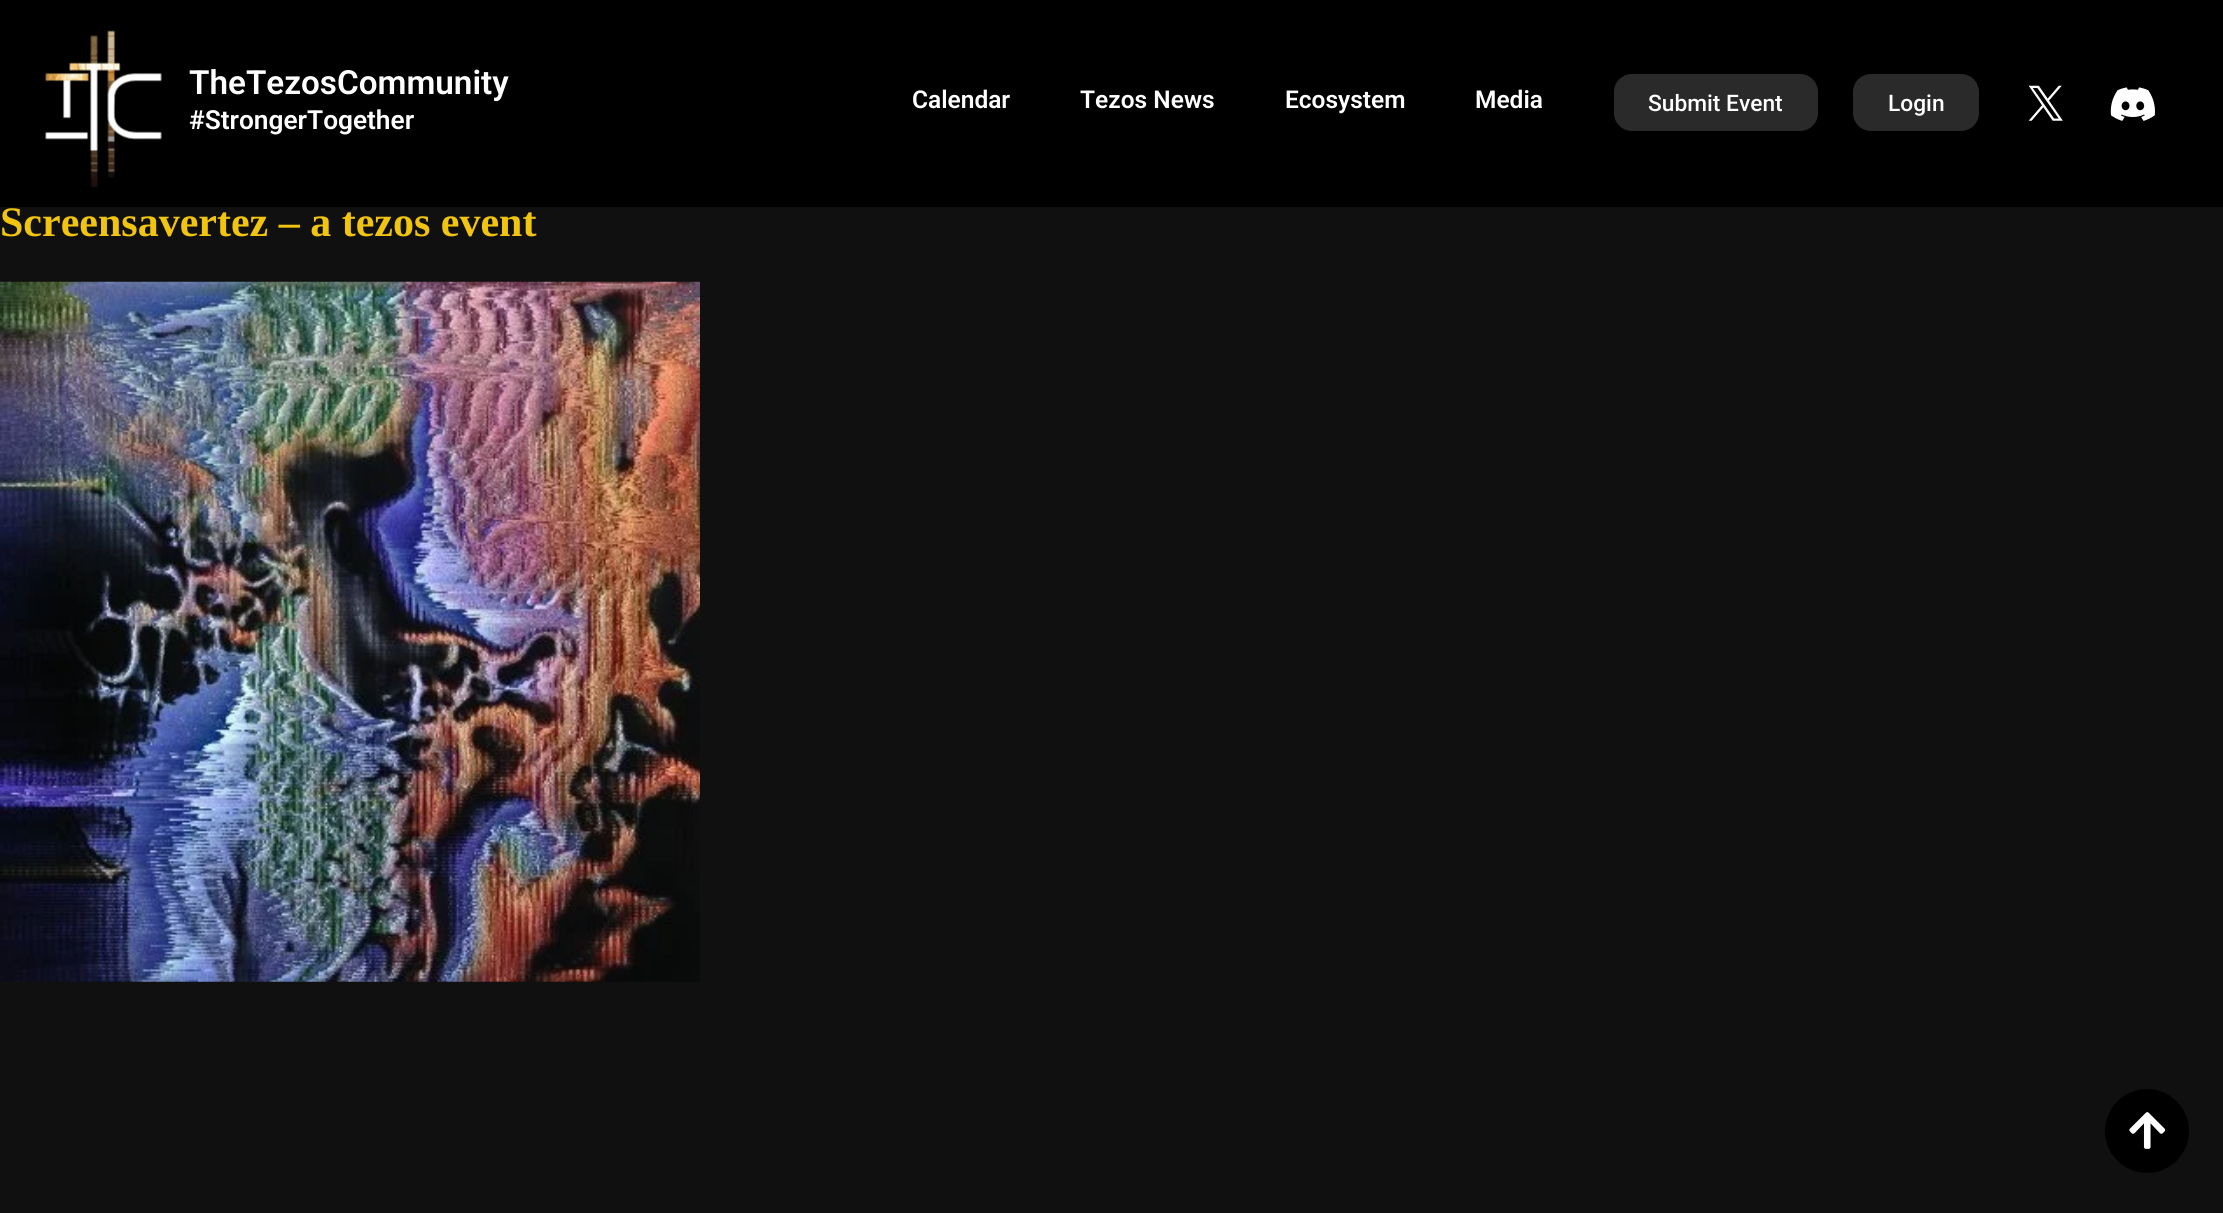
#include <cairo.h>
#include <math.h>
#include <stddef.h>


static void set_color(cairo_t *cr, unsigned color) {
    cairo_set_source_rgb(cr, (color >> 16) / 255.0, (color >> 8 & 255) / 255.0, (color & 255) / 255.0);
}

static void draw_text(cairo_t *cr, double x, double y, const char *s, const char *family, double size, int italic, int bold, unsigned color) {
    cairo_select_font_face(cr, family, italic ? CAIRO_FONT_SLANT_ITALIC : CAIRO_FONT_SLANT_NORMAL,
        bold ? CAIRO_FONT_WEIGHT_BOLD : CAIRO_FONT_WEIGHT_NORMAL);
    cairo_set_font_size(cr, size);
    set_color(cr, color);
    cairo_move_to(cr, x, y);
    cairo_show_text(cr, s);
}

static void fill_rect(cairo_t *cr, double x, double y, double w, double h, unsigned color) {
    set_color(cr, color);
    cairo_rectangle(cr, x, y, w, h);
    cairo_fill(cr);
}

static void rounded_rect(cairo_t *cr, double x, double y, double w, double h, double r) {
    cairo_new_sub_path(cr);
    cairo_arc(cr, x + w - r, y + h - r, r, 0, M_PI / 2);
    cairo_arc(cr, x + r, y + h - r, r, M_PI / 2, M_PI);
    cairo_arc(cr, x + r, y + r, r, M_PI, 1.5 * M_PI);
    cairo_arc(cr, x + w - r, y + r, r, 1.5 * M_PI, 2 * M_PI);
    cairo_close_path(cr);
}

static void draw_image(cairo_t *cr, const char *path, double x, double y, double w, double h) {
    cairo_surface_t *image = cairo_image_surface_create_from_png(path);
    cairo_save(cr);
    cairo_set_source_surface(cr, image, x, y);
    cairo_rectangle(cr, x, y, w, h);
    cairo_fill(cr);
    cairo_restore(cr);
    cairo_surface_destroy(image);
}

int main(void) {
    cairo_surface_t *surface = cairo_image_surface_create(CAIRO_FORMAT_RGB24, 2223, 1213);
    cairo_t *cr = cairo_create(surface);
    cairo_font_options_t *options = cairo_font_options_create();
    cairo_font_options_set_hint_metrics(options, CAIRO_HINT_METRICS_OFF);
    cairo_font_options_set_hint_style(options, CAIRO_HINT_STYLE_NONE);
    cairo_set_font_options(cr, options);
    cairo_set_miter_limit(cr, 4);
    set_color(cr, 0x101010);
    cairo_paint(cr);
    fill_rect(cr, 0, 0, 2223, 207, 0x000000);
    draw_image(cr, "assets/img1.png", 45, 30, 117, 158);
    draw_text(cr, 189, 94, "TheTezosCommunity", "Vazirmatn SemiBold", 33.25, 0, 0, 0xFFFFFF);
    draw_text(cr, 189, 129, "#StrongerTogether", "Vazirmatn SemiBold", 26.25, 0, 0, 0xFFFFFF);
    draw_text(cr, 912, 108, "Calendar", "Vazirmatn SemiBold", 24.5, 0, 0, 0xFFFFFF);
    draw_text(cr, 1080, 108, "Tezos News", "Vazirmatn SemiBold", 24.5, 0, 0, 0xFFFFFF);
    draw_text(cr, 1285, 108, "Ecosystem", "Vazirmatn SemiBold", 24.5, 0, 0, 0xFFFFFF);
    draw_text(cr, 1475, 108, "Media", "Vazirmatn SemiBold", 24.5, 0, 0, 0xFFFFFF);
    set_color(cr, 0x2A2A2A);
    rounded_rect(cr, 1614, 74, 204, 57, 18);
    cairo_fill(cr);
    draw_text(cr, 1648, 111, "Submit Event", "Roboto Medium", 22.75, 0, 0, 0xFFFFFF);
    set_color(cr, 0x2A2A2A);
    rounded_rect(cr, 1853, 74, 126, 57, 18);
    cairo_fill(cr);
    draw_text(cr, 1888, 111, "Login", "Roboto Medium", 22.75, 0, 0, 0xFFFFFF);
    draw_image(cr, "assets/img2.png", 2028, 85, 35, 36);
    draw_image(cr, "assets/img3.png", 2110, 87, 45, 34);
    draw_text(cr, 0, 236, "Screensavertez – a tezos event", "Liberation Serif", 42, 0, 1, 0xF1C40F);
    draw_image(cr, "assets/img4.png", 0, 281, 700, 701);
    set_color(cr, 0x000000);
    cairo_arc(cr, 2147, 1131, 42, 0, 2 * M_PI);
    cairo_fill(cr);
    draw_image(cr, "assets/img5.png", 2129, 1112, 37, 37);
    cairo_surface_write_to_png(surface, "output.png");
    cairo_font_options_destroy(options);
    cairo_destroy(cr);
    cairo_surface_destroy(surface);
    return 0;
}
